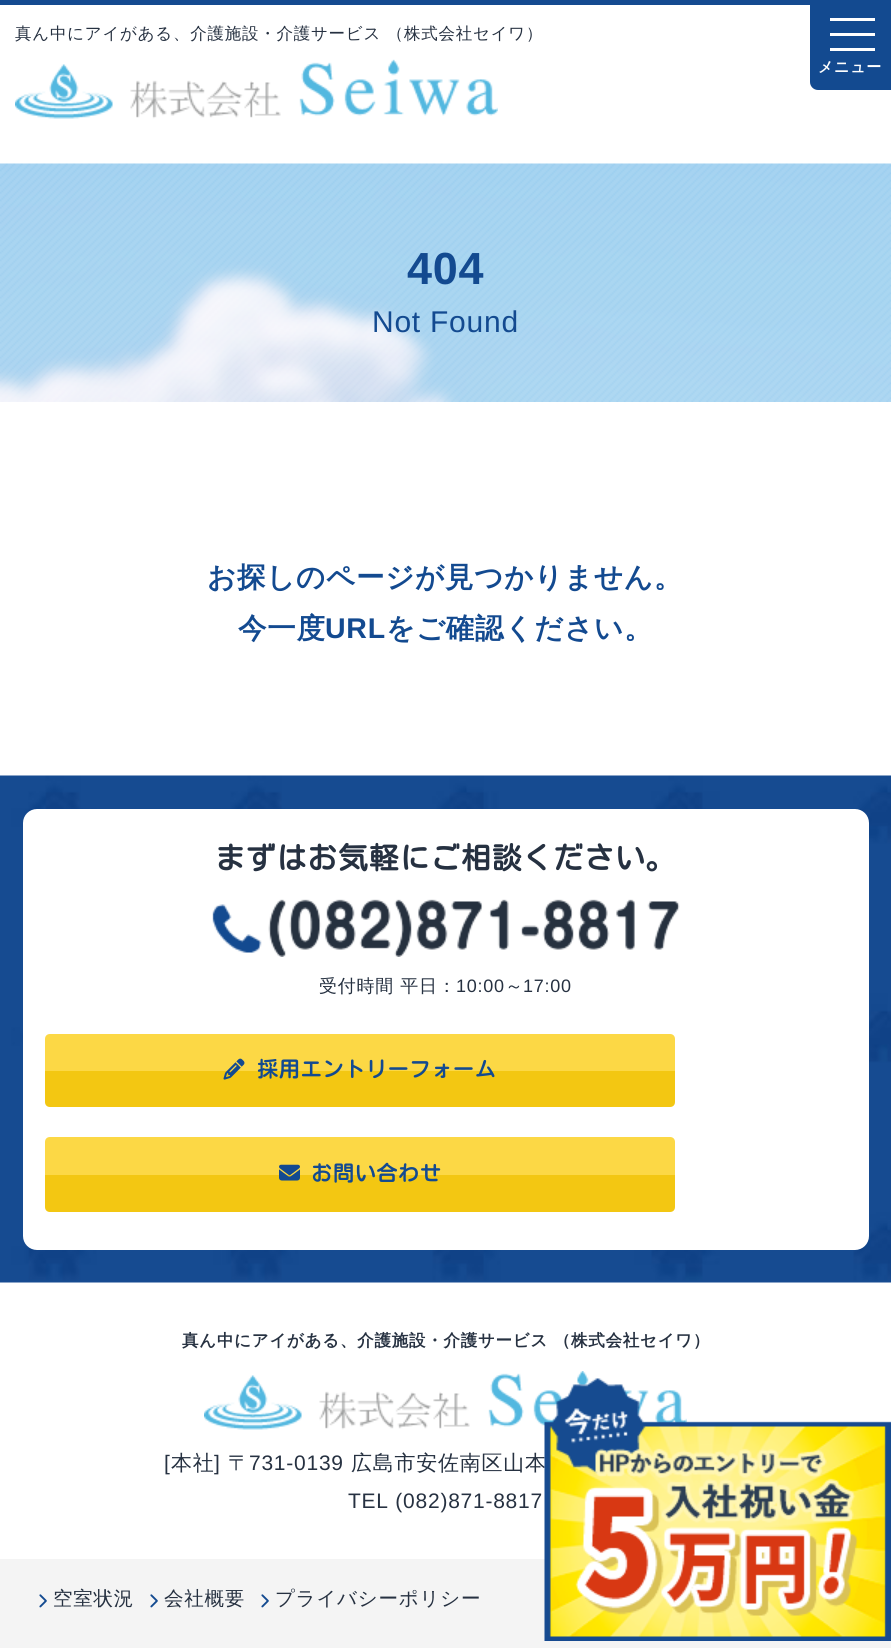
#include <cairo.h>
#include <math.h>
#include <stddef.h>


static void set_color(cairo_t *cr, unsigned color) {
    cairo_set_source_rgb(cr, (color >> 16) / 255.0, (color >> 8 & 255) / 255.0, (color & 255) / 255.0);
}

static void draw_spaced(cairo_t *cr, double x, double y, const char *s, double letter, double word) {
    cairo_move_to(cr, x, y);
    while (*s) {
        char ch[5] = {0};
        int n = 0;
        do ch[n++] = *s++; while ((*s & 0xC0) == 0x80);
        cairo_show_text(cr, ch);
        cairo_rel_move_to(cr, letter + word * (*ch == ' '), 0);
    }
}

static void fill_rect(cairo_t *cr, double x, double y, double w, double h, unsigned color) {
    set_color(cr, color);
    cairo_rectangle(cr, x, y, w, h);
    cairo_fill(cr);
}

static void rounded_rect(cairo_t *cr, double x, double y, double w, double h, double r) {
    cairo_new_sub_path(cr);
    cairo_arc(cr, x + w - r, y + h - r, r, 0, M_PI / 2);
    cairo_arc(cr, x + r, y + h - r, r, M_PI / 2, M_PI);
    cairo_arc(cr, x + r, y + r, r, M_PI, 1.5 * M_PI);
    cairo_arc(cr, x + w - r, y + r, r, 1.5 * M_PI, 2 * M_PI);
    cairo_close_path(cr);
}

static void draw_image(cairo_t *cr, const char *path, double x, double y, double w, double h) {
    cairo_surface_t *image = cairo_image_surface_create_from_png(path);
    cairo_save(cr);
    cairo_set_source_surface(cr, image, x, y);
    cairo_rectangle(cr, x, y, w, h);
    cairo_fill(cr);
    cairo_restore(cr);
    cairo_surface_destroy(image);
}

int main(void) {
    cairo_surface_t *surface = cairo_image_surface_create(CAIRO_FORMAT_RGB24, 891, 1648);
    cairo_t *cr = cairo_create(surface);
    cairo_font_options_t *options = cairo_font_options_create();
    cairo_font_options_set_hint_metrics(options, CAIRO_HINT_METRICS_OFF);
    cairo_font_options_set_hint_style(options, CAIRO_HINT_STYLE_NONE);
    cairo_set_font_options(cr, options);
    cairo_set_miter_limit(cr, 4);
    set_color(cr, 0xFFFFFF);
    cairo_paint(cr);
    fill_rect(cr, 0, 0, 810, 5, 0x144A90);
    cairo_select_font_face(cr, "WenQuanYi Zen Hei Medium", CAIRO_FONT_SLANT_NORMAL, CAIRO_FONT_WEIGHT_NORMAL);
    cairo_set_font_size(cr, 16.5);
    set_color(cr, 0x263141);
    draw_spaced(cr, 15, 39, "真ん中にアイがある、介護施設・介護サービス （株式会社セイワ）", 0.75, 0);
    draw_image(cr, "assets/img1.png", 15, 59, 483, 60);
    set_color(cr, 0x134A90);
    cairo_new_path(cr);
    cairo_move_to(cr, 812.5, 2.5);
    cairo_line_to(cr, 888.5, 2.5);
    cairo_line_to(cr, 888.5, 87.5);
    cairo_line_to(cr, 818, 87.5);
    cairo_curve_to(cr, 815, 87.5, 812.5, 85, 812.5, 82);
    cairo_close_path(cr);
    cairo_fill_preserve(cr);
    cairo_set_line_width(cr, 5);
    cairo_stroke(cr);
    fill_rect(cr, 830, 18, 45, 3, 0xFFFFFF);
    fill_rect(cr, 830, 33, 45, 3, 0xFFFFFF);
    fill_rect(cr, 830, 48, 45, 3, 0xFFFFFF);
    cairo_select_font_face(cr, "WenQuanYi Zen Hei", CAIRO_FONT_SLANT_NORMAL, CAIRO_FONT_WEIGHT_BOLD);
    cairo_set_font_size(cr, 15);
    draw_spaced(cr, 818, 72, "メニュー", 0.75, 0);
    draw_image(cr, "assets/img2.png", 0, 163, 891, 239);
    cairo_select_font_face(cr, "Liberation Sans", CAIRO_FONT_SLANT_NORMAL, CAIRO_FONT_WEIGHT_BOLD);
    cairo_set_font_size(cr, 45);
    set_color(cr, 0x134A90);
    draw_spaced(cr, 407, 284, "404", 0.75, 0);
    cairo_select_font_face(cr, "Liberation Sans", CAIRO_FONT_SLANT_NORMAL, CAIRO_FONT_WEIGHT_NORMAL);
    cairo_set_font_size(cr, 30);
    draw_spaced(cr, 372, 332, "Not Found", 0.75, 0);
    cairo_select_font_face(cr, "WenQuanYi Zen Hei", CAIRO_FONT_SLANT_NORMAL, CAIRO_FONT_WEIGHT_BOLD);
    cairo_set_font_size(cr, 28.5);
    draw_spaced(cr, 207, 587, "お探しのページが見つかりません。", 0.75, 0);
    draw_spaced(cr, 238, 638, "今一度", 0.75, 0);
    cairo_select_font_face(cr, "Liberation Sans", CAIRO_FONT_SLANT_NORMAL, CAIRO_FONT_WEIGHT_BOLD);
    draw_spaced(cr, 325, 638, "URL", 0.75, 0);
    cairo_select_font_face(cr, "WenQuanYi Zen Hei", CAIRO_FONT_SLANT_NORMAL, CAIRO_FONT_WEIGHT_BOLD);
    draw_spaced(cr, 386, 638, "をご確認ください。", 0.75, 0);
    draw_image(cr, "assets/img3.png", 0, 775, 891, 508);
    set_color(cr, 0xFFFFFF);
    rounded_rect(cr, 23, 809, 846, 441, 14);
    cairo_fill(cr);
    cairo_select_font_face(cr, "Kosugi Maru", CAIRO_FONT_SLANT_NORMAL, CAIRO_FONT_WEIGHT_BOLD);
    cairo_set_font_size(cr, 30);
    set_color(cr, 0x263141);
    draw_spaced(cr, 215, 869, "まずはお気軽にご相談ください。", 0.75, 0);
    draw_image(cr, "assets/img4.png", 212, 899, 468, 58);
    cairo_select_font_face(cr, "WenQuanYi Zen Hei Medium", CAIRO_FONT_SLANT_NORMAL, CAIRO_FONT_WEIGHT_NORMAL);
    cairo_set_font_size(cr, 18);
    draw_spaced(cr, 319, 992, "受付時間 平日：", 0.75, 0);
    cairo_select_font_face(cr, "Liberation Sans", CAIRO_FONT_SLANT_NORMAL, CAIRO_FONT_WEIGHT_NORMAL);
    draw_spaced(cr, 456, 992, "10:00", 0.75, 0);
    cairo_select_font_face(cr, "WenQuanYi Zen Hei Medium", CAIRO_FONT_SLANT_NORMAL, CAIRO_FONT_WEIGHT_NORMAL);
    draw_spaced(cr, 505, 992, "～", 0.75, 0);
    cairo_select_font_face(cr, "Liberation Sans", CAIRO_FONT_SLANT_NORMAL, CAIRO_FONT_WEIGHT_NORMAL);
    draw_spaced(cr, 523, 992, "17:00", 0.75, 0);
    set_color(cr, 0xFCD845);
    cairo_new_path(cr);
    cairo_move_to(cr, 50, 1034);
    cairo_line_to(cr, 670, 1034);
    cairo_curve_to(cr, 673, 1034, 675, 1036, 675, 1039);
    cairo_line_to(cr, 675, 1071);
    cairo_line_to(cr, 45, 1071);
    cairo_line_to(cr, 45, 1039);
    cairo_curve_to(cr, 45, 1036, 47, 1034, 50, 1034);
    cairo_close_path(cr);
    cairo_fill(cr);
    set_color(cr, 0xF3C712);
    cairo_new_path(cr);
    cairo_move_to(cr, 45, 1071);
    cairo_line_to(cr, 675, 1071);
    cairo_line_to(cr, 675, 1102);
    cairo_curve_to(cr, 675, 1105, 673, 1107, 670, 1107);
    cairo_line_to(cr, 50, 1107);
    cairo_curve_to(cr, 47, 1107, 45, 1105, 45, 1102);
    cairo_close_path(cr);
    cairo_fill(cr);
    draw_image(cr, "assets/img5.png", 223, 1058, 22, 22);
    cairo_select_font_face(cr, "Kosugi Maru", CAIRO_FONT_SLANT_NORMAL, CAIRO_FONT_WEIGHT_BOLD);
    cairo_set_font_size(cr, 21);
    set_color(cr, 0x134A90);
    draw_spaced(cr, 257, 1077, "採用エントリーフォーム", 0.75, 0);
    set_color(cr, 0xFCD845);
    cairo_new_path(cr);
    cairo_move_to(cr, 50, 1137);
    cairo_line_to(cr, 670, 1137);
    cairo_curve_to(cr, 673, 1137, 675, 1139, 675, 1142);
    cairo_line_to(cr, 675, 1175);
    cairo_line_to(cr, 45, 1175);
    cairo_line_to(cr, 45, 1142);
    cairo_curve_to(cr, 45, 1139, 47, 1137, 50, 1137);
    cairo_close_path(cr);
    cairo_fill(cr);
    set_color(cr, 0xF3C712);
    cairo_new_path(cr);
    cairo_move_to(cr, 45, 1175);
    cairo_line_to(cr, 675, 1175);
    cairo_line_to(cr, 675, 1207);
    cairo_curve_to(cr, 675, 1210, 673, 1212, 670, 1212);
    cairo_line_to(cr, 50, 1212);
    cairo_curve_to(cr, 47, 1212, 45, 1210, 45, 1207);
    cairo_close_path(cr);
    cairo_fill(cr);
    draw_image(cr, "assets/img6.png", 279, 1164, 21, 17);
    set_color(cr, 0x134A90);
    draw_spaced(cr, 311, 1181, "お問い合わせ", 0.75, 0);
    draw_image(cr, "assets/img8.png", 204, 1371, 483, 59);
    cairo_select_font_face(cr, "WenQuanYi Zen Hei Medium", CAIRO_FONT_SLANT_NORMAL, CAIRO_FONT_WEIGHT_NORMAL);
    set_color(cr, 0x263141);
    draw_spaced(cr, 351, 1470, "広島市安佐南区山本", 0.75, 0);
    fill_rect(cr, 0, 1559, 891, 89, 0xF4F4F4);
    draw_image(cr, "assets/img7.png", 544, 1378, 347, 263);
    cairo_select_font_face(cr, "WenQuanYi Zen Hei", CAIRO_FONT_SLANT_NORMAL, CAIRO_FONT_WEIGHT_BOLD);
    cairo_set_font_size(cr, 16.5);
    set_color(cr, 0x263141);
    draw_spaced(cr, 182, 1346, "真ん中にアイがある、介護施設・介護サービス （株式会社セイワ）", 0.75, 0);
    cairo_select_font_face(cr, "Liberation Sans", CAIRO_FONT_SLANT_NORMAL, CAIRO_FONT_WEIGHT_NORMAL);
    cairo_set_font_size(cr, 21);
    draw_spaced(cr, 164, 1470, "[", 0.75, 0);
    cairo_select_font_face(cr, "WenQuanYi Zen Hei Medium", CAIRO_FONT_SLANT_NORMAL, CAIRO_FONT_WEIGHT_NORMAL);
    draw_spaced(cr, 171, 1470, "本社", 0.75, 0);
    cairo_select_font_face(cr, "Liberation Sans", CAIRO_FONT_SLANT_NORMAL, CAIRO_FONT_WEIGHT_NORMAL);
    draw_spaced(cr, 214, 1470, "]", 0.75, 0);
    cairo_select_font_face(cr, "WenQuanYi Zen Hei Medium", CAIRO_FONT_SLANT_NORMAL, CAIRO_FONT_WEIGHT_NORMAL);
    draw_spaced(cr, 228, 1470, "〒", 0.75, 0);
    cairo_select_font_face(cr, "Liberation Sans", CAIRO_FONT_SLANT_NORMAL, CAIRO_FONT_WEIGHT_NORMAL);
    draw_spaced(cr, 249, 1470, "731-0139", 0.75, 0);
    draw_spaced(cr, 348, 1508, "TEL (082)871-8817", 0.75, 0);
    draw_image(cr, "assets/img9.png", 39, 1594, 8, 14);
    cairo_select_font_face(cr, "WenQuanYi Zen Hei Medium", CAIRO_FONT_SLANT_NORMAL, CAIRO_FONT_WEIGHT_NORMAL);
    cairo_set_font_size(cr, 19.5);
    draw_spaced(cr, 53, 1605, "空室状況", 0.75, 0);
    draw_image(cr, "assets/img9.png", 150, 1594, 8, 14);
    draw_spaced(cr, 164, 1605, "会社概要", 0.75, 0);
    draw_image(cr, "assets/img9.png", 261, 1594, 8, 14);
    draw_spaced(cr, 275, 1605, "プライバシーポリシー", 0.75, 0);
    cairo_surface_write_to_png(surface, "output.png");
    cairo_font_options_destroy(options);
    cairo_destroy(cr);
    cairo_surface_destroy(surface);
    return 0;
}
